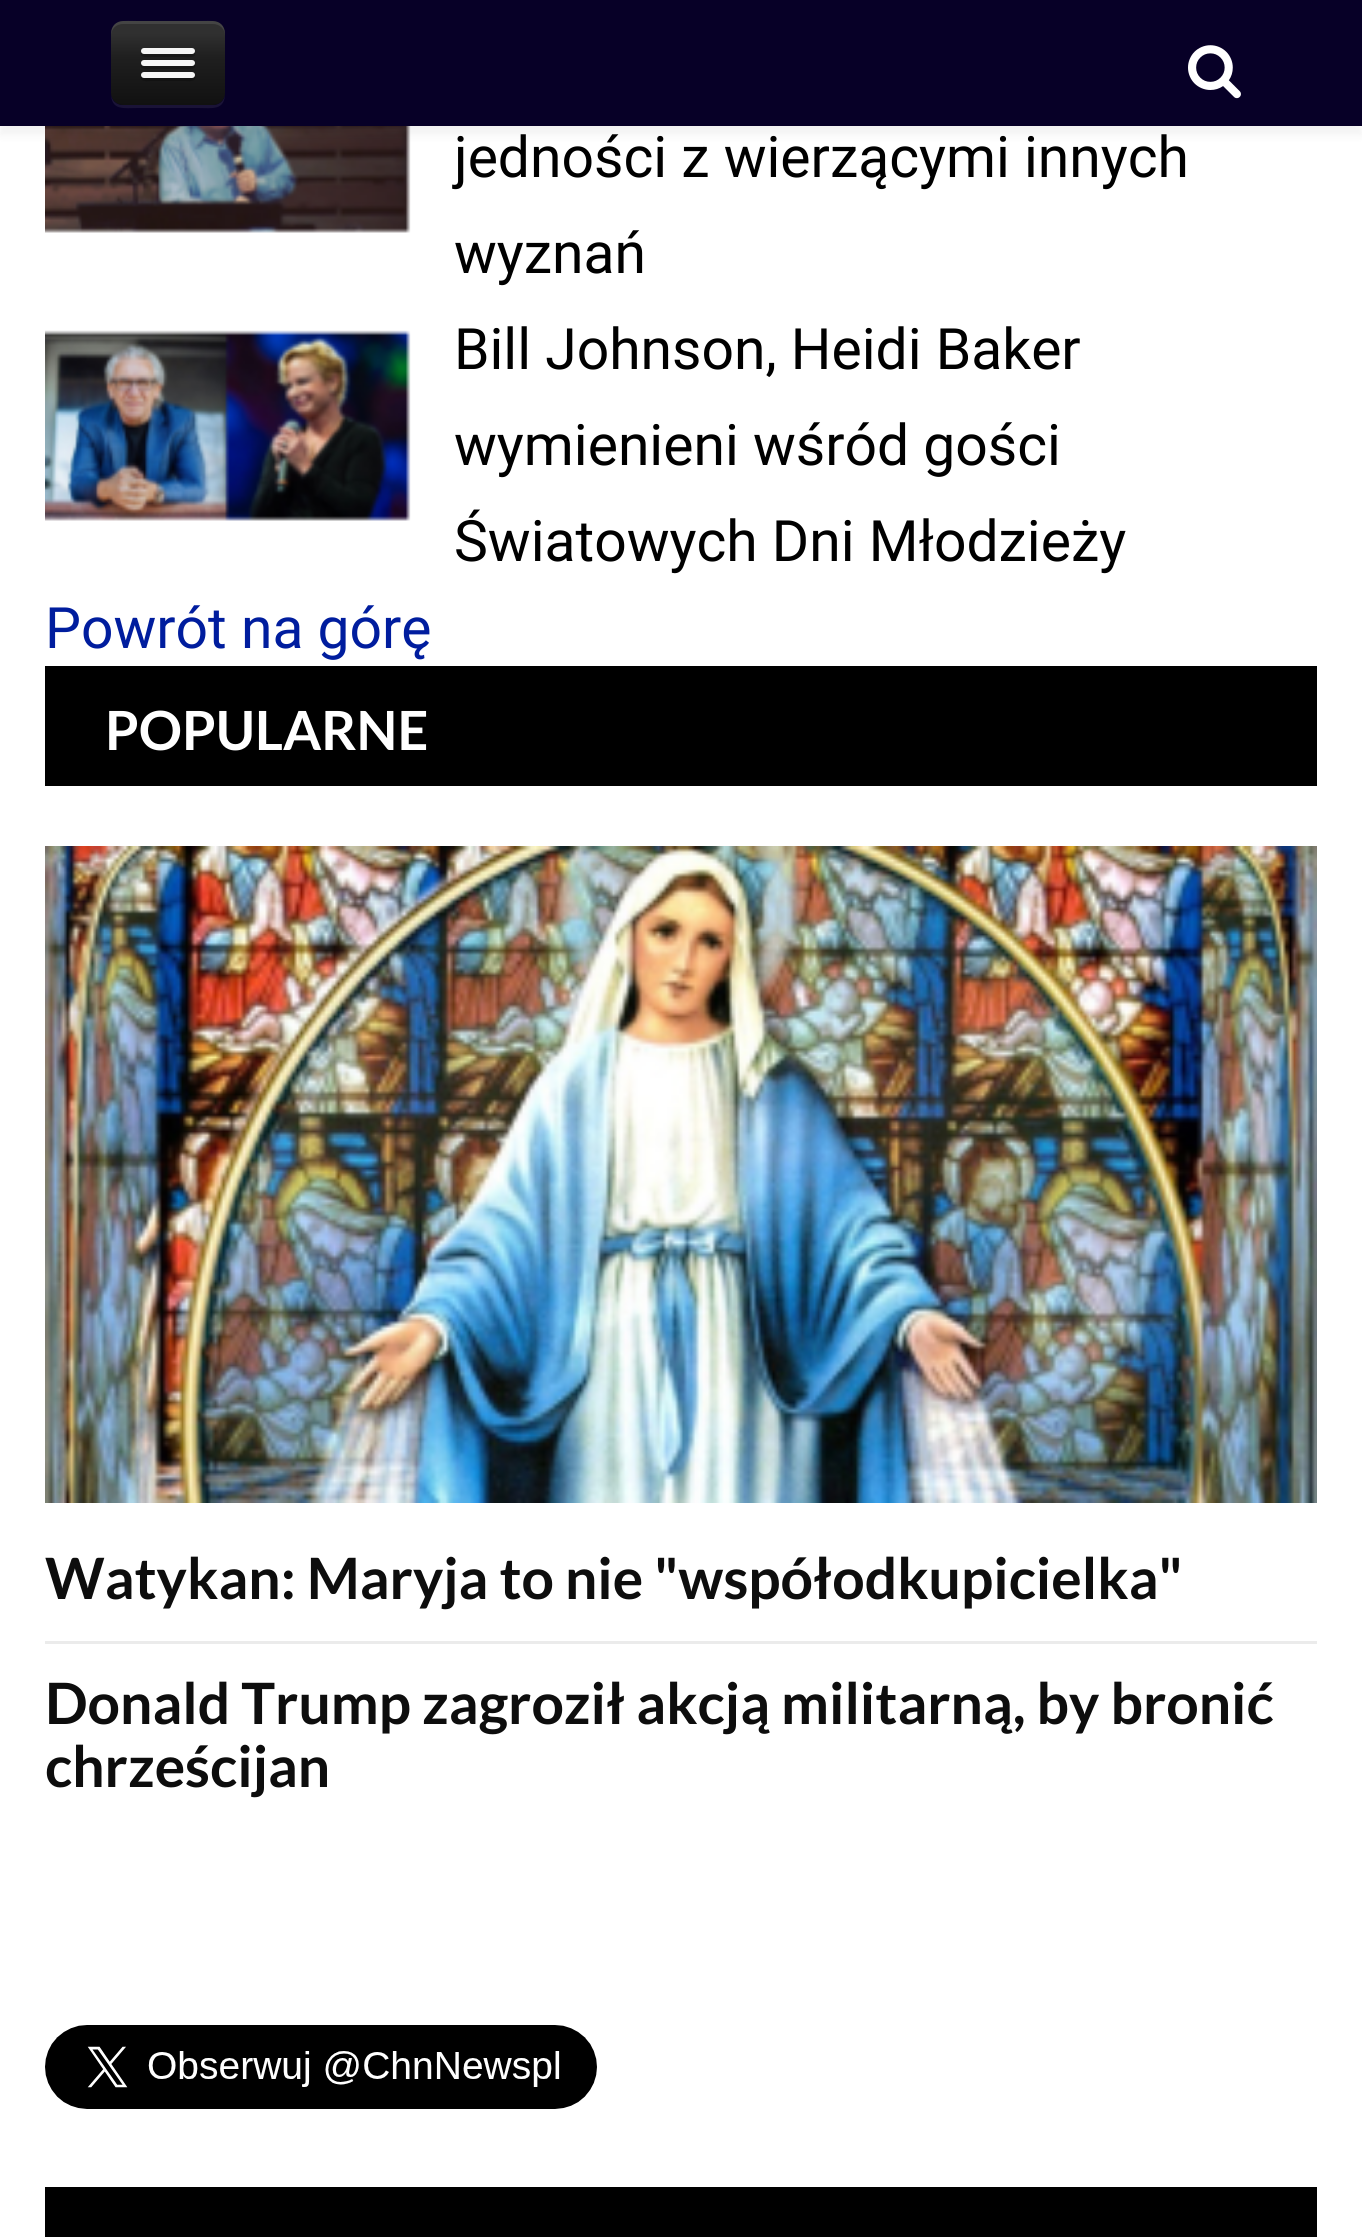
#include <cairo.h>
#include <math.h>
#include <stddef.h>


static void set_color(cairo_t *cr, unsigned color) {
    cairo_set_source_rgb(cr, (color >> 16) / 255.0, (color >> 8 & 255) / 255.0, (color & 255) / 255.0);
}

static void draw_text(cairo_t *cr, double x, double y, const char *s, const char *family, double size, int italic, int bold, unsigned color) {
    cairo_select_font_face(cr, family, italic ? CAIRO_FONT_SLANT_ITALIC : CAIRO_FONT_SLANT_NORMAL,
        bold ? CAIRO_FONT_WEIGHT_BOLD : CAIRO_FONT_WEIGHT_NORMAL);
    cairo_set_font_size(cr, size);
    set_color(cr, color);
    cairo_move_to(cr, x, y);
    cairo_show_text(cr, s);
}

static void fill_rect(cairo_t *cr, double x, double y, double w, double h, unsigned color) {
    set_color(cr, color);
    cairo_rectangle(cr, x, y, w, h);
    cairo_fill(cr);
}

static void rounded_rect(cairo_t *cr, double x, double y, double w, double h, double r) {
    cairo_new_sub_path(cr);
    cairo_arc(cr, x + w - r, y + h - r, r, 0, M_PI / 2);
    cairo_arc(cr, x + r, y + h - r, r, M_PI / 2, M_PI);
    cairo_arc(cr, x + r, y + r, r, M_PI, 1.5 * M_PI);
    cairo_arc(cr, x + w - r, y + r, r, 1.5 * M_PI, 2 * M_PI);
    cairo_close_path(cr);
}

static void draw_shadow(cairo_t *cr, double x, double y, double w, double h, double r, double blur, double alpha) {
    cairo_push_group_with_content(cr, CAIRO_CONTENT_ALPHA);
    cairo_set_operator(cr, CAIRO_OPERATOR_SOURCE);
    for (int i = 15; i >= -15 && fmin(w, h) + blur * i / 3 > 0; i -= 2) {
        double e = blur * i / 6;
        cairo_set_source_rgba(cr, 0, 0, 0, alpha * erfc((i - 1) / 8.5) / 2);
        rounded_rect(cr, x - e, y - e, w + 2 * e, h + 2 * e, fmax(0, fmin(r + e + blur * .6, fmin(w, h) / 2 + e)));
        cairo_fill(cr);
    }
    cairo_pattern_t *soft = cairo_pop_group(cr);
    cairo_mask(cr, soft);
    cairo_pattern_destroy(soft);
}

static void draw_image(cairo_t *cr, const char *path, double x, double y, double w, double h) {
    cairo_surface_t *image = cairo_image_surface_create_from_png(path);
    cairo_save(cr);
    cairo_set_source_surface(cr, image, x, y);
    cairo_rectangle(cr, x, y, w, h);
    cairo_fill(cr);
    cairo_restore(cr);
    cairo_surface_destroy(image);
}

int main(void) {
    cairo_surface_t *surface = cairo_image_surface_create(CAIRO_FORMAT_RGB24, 1362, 2237);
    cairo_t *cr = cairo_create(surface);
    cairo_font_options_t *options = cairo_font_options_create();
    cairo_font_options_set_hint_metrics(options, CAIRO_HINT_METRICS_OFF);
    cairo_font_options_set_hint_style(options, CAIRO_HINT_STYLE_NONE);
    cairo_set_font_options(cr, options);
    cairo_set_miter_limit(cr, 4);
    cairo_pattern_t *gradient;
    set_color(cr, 0xFFFFFF);
    cairo_paint(cr);
    draw_image(cr, "assets/img2.png", 45, 126, 366, 107);
    set_color(cr, 0x000000);
    draw_shadow(cr, 0, 9, 1362, 126, 0, 4.5, 0.05);
    fill_rect(cr, 0, 0, 1362, 126, 0x070027);
    set_color(cr, 0x1A1337);
    cairo_new_path(cr);
    cairo_move_to(cr, 111, 93);
    cairo_curve_to(cr, 111, 111, 124, 108, 138, 108);
    cairo_line_to(cr, 198, 108);
    cairo_curve_to(cr, 212, 108, 225, 111, 225, 93);
    cairo_curve_to(cr, 225, 100, 220, 105, 213, 105);
    cairo_line_to(cr, 123, 105);
    cairo_curve_to(cr, 116, 105, 111, 100, 111, 93);
    cairo_close_path(cr);
    cairo_fill(cr);
    gradient = cairo_pattern_create_linear(168, 105, 168, 21);
    cairo_pattern_add_color_stop_rgba(gradient, 0.01, 0.067, 0.067, 0.067, 1);
    cairo_pattern_add_color_stop_rgba(gradient, 0.57, 0.122, 0.122, 0.122, 1);
    cairo_pattern_add_color_stop_rgba(gradient, 0.85, 0.188, 0.188, 0.188, 1);
    cairo_set_source(cr, gradient);
    cairo_pattern_destroy(gradient);
    rounded_rect(cr, 111, 21, 114, 84, 12);
    cairo_fill(cr);
    cairo_set_source_rgba(cr, 1, 1, 1, 0.1);
    cairo_new_path(cr);
    cairo_move_to(cr, 123, 24);
    cairo_line_to(cr, 213, 24);
    cairo_curve_to(cr, 220, 24, 225, 29, 225, 36);
    cairo_curve_to(cr, 225, 18, 212, 21, 198, 21);
    cairo_line_to(cr, 138, 21);
    cairo_curve_to(cr, 124, 21, 111, 18, 111, 36);
    cairo_curve_to(cr, 111, 29, 116, 24, 123, 24);
    cairo_close_path(cr);
    cairo_fill(cr);
    cairo_set_source_rgba(cr, 0, 0, 0, 0.25);
    cairo_new_path(cr);
    cairo_move_to(cr, 141, 52);
    cairo_curve_to(cr, 138, 59, 152, 57, 152, 57);
    cairo_line_to(cr, 184, 57);
    cairo_curve_to(cr, 184, 57, 198, 59, 195, 52);
    cairo_curve_to(cr, 194, 53, 193, 54, 192, 54);
    cairo_line_to(cr, 144, 54);
    cairo_curve_to(cr, 143, 54, 142, 53, 141, 52);
    cairo_close_path(cr);
    cairo_fill(cr);
    set_color(cr, 0xF5F5F5);
    rounded_rect(cr, 141, 48, 54, 6, 3);
    cairo_fill(cr);
    set_color(cr, 0x151515);
    cairo_new_path(cr);
    cairo_move_to(cr, 141, 64);
    cairo_curve_to(cr, 138, 71, 152, 69, 152, 69);
    cairo_line_to(cr, 184, 69);
    cairo_curve_to(cr, 184, 69, 198, 71, 195, 64);
    cairo_curve_to(cr, 194, 65, 193, 66, 192, 66);
    cairo_line_to(cr, 144, 66);
    cairo_curve_to(cr, 143, 66, 142, 65, 141, 64);
    cairo_close_path(cr);
    cairo_fill(cr);
    set_color(cr, 0xF5F5F5);
    rounded_rect(cr, 141, 60, 54, 6, 3);
    cairo_fill(cr);
    set_color(cr, 0x121212);
    cairo_new_path(cr);
    cairo_move_to(cr, 141, 76);
    cairo_curve_to(cr, 138, 83, 152, 81, 152, 81);
    cairo_line_to(cr, 184, 81);
    cairo_curve_to(cr, 184, 81, 198, 83, 195, 76);
    cairo_curve_to(cr, 194, 77, 193, 78, 192, 78);
    cairo_line_to(cr, 144, 78);
    cairo_curve_to(cr, 143, 78, 142, 77, 141, 76);
    cairo_close_path(cr);
    cairo_fill(cr);
    set_color(cr, 0xF5F5F5);
    rounded_rect(cr, 141, 72, 54, 6, 3);
    cairo_fill(cr);
    draw_image(cr, "assets/img1.png", 1188, 45, 53, 54);
    draw_text(cr, 454, 177, "jedności z wierzącymi innych", "Roboto", 57, 0, 0, 0x000000);
    draw_text(cr, 454, 273, "wyznań", "Roboto", 57, 0, 0, 0x000000);
    draw_image(cr, "assets/img3.png", 45, 330, 366, 191);
    draw_text(cr, 454, 369, "Bill Johnson, Heidi Baker", "Roboto", 57, 0, 0, 0x000000);
    draw_text(cr, 454, 465, "wymienieni wśród gości", "Roboto", 57, 0, 0, 0x000000);
    draw_text(cr, 454, 561, "Światowych Dni Młodzieży", "Roboto", 57, 0, 0, 0x000000);
    draw_text(cr, 45, 648, "Powrót na górę", "Roboto", 57, 0, 0, 0x001D9E);
    fill_rect(cr, 45, 666, 1272, 120, 0x000000);
    draw_text(cr, 105, 750, "POPULARNE", "Lato", 54, 0, 1, 0xFFFFFF);
    fill_rect(cr, 45, 1641, 1272, 3, 0xEBEBEB);
    draw_image(cr, "assets/img4.png", 45, 846, 1272, 657);
    draw_text(cr, 45, 1599, "Watykan: Maryja to nie \"współodkupicielka\"", "Lato", 57, 0, 1, 0x0D0D0D);
    draw_text(cr, 45, 1724, "Donald Trump zagroził akcją militarną, by bronić", "Lato", 57, 0, 1, 0x0D0D0D);
    draw_text(cr, 45, 1787, "chrześcijan", "Lato", 57, 0, 1, 0x0D0D0D);
    draw_image(cr, "assets/img5.png", 45, 2025, 552, 84);
    fill_rect(cr, 45, 2187, 1272, 50, 0x000000);
    cairo_surface_write_to_png(surface, "output.png");
    cairo_font_options_destroy(options);
    cairo_destroy(cr);
    cairo_surface_destroy(surface);
    return 0;
}
